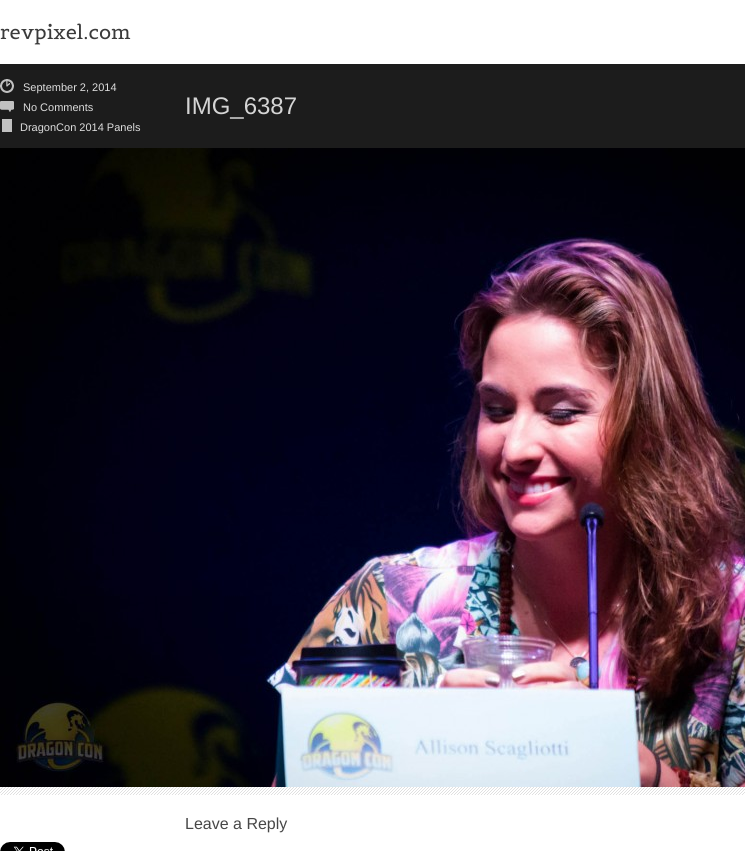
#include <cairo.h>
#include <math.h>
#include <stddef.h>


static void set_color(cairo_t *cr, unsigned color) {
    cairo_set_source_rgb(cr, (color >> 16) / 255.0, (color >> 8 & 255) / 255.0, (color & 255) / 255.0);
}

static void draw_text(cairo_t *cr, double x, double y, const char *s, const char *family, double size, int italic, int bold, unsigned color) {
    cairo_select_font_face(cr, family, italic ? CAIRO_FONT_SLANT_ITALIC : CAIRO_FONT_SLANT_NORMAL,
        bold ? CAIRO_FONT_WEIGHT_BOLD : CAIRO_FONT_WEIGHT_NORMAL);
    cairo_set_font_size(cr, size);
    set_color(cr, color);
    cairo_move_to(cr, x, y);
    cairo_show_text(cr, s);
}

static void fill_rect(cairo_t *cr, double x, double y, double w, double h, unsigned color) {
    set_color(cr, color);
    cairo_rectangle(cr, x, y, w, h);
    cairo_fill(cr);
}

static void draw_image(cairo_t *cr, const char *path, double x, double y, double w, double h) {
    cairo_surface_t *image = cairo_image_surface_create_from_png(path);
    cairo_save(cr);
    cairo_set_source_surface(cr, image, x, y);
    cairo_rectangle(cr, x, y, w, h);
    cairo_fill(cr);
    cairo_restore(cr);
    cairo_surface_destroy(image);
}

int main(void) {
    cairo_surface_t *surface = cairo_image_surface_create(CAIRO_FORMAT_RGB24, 745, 851);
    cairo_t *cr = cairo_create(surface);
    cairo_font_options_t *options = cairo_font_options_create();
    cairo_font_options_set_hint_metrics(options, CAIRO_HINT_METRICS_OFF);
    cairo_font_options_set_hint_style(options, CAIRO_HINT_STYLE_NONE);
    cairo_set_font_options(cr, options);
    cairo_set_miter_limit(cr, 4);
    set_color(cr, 0xFFFFFF);
    cairo_paint(cr);
    draw_text(cr, 0, 39, "revpixel.com", "Belgrano", 20, 0, 0, 0x3B3B3B);
    fill_rect(cr, 0, 64, 745, 84, 0x1C1C1C);
    draw_image(cr, "assets/img1.png", 0, 79, 14, 14);
    draw_text(cr, 23, 91, "September 2, 2014", "Liberation Sans", 11, 0, 0, 0xDDDDDD);
    draw_image(cr, "assets/img2.png", 0, 101, 14, 11);
    draw_text(cr, 23, 111, "No Comments", "Liberation Sans", 11, 0, 0, 0xDDDDDD);
    fill_rect(cr, 2, 119, 10, 13, 0xC1C1C1);
    draw_text(cr, 20, 131, "DragonCon 2014 Panels", "Liberation Sans", 11, 0, 0, 0xDDDDDD);
    draw_text(cr, 185, 114, "IMG_6387", "Liberation Sans", 24, 0, 0, 0xD4D4D4);
    draw_image(cr, "assets/img3.png", 0, 148, 745, 639);
    draw_image(cr, "assets/img4.png", 0, 787, 745, 8);
    draw_text(cr, 185, 829, "Leave a Reply", "Liberation Sans", 16, 0, 0, 0x474747);
    draw_image(cr, "assets/img5.png", 0, 842, 65, 9);
    cairo_surface_write_to_png(surface, "output.png");
    cairo_font_options_destroy(options);
    cairo_destroy(cr);
    cairo_surface_destroy(surface);
    return 0;
}
